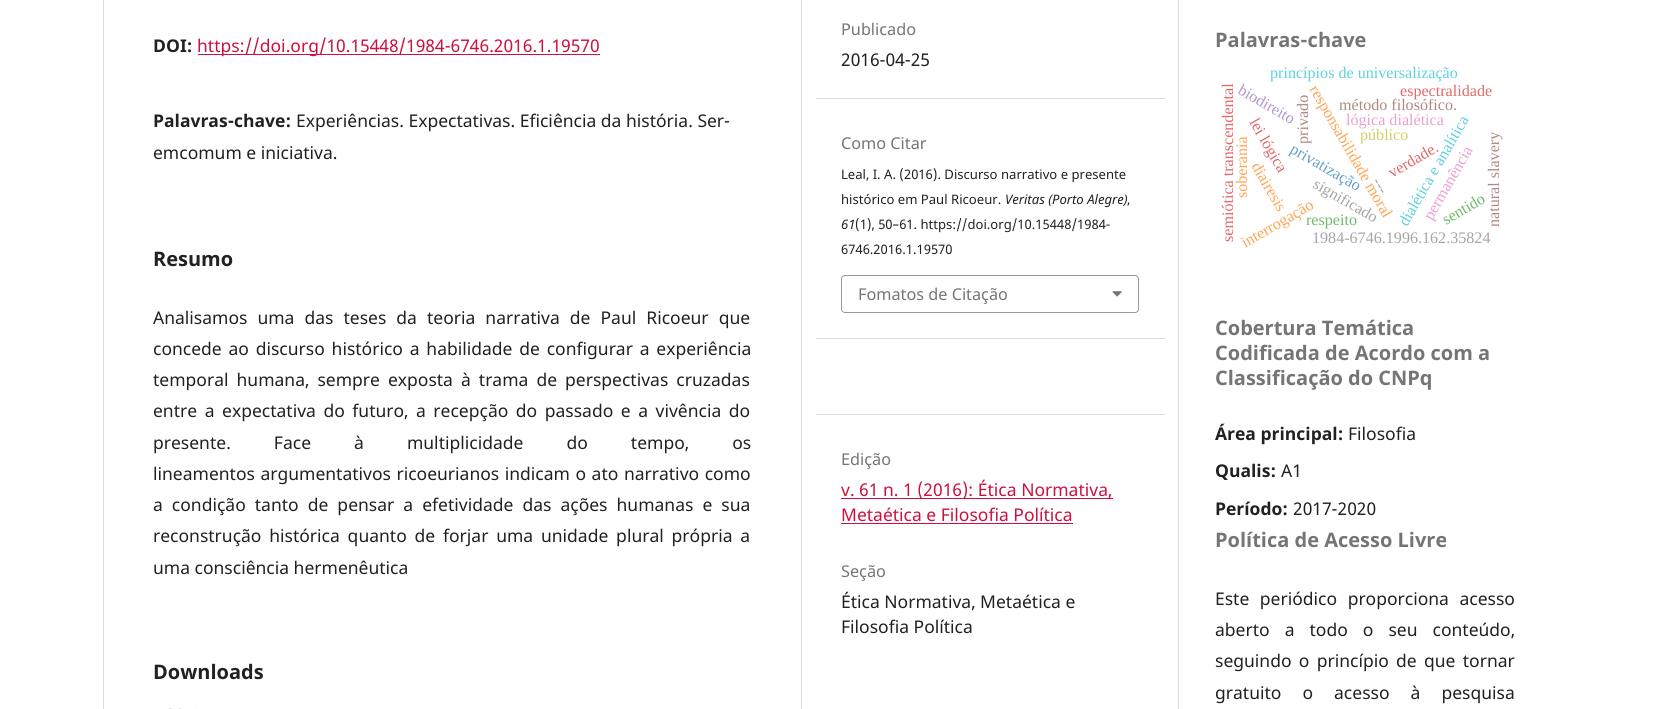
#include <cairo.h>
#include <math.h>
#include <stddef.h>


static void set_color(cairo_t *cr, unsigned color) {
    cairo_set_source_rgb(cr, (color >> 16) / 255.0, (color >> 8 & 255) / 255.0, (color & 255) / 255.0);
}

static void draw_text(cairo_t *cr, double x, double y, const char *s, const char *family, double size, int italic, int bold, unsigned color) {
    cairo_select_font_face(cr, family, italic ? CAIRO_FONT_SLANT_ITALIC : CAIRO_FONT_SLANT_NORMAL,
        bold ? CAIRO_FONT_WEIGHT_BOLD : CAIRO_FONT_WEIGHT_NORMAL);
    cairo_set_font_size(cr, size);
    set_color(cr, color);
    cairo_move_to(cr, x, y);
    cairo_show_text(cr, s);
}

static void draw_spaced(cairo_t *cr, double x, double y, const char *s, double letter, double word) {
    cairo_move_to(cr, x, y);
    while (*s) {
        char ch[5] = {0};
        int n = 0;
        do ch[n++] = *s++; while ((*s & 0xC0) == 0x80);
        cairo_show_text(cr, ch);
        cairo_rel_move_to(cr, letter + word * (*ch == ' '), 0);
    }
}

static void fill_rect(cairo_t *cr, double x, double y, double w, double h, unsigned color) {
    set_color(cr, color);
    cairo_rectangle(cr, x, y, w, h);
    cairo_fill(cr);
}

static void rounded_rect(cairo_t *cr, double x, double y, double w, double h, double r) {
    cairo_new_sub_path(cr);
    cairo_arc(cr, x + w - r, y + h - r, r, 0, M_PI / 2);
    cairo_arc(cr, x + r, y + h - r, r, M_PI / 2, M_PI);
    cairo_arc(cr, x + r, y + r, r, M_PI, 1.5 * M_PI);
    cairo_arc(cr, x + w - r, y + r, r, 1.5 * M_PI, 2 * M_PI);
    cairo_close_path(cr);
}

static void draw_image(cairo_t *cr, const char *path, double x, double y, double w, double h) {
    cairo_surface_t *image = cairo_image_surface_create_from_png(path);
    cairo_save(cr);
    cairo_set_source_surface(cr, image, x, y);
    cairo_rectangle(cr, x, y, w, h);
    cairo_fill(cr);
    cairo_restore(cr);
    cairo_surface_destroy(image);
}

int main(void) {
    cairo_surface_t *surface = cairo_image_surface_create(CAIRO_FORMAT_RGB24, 1655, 709);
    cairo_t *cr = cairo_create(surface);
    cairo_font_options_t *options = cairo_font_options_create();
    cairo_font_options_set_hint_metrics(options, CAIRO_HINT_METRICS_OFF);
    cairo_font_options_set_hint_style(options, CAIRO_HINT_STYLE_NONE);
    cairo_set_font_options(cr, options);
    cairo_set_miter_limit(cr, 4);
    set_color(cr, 0xFFFFFF);
    cairo_paint(cr);
    fill_rect(cr, 103, 0, 1, 709, 0xDDDDDD);
    fill_rect(cr, 801, 0, 1, 709, 0xDDDDDD);
    draw_text(cr, 153, 52, "DOI:", "Noto Sans", 17.5, 0, 1, 0x212121);
    fill_rect(cr, 198, 54, 402, 1, 0xCE103F);
    draw_text(cr, 197, 52, "https://doi.org/10.15448/1984-6746.2016.1.19570", "Noto Sans", 17.5, 0, 0, 0xCE103F);
    draw_text(cr, 153, 127, "Palavras-chave:", "Noto Sans", 17.5, 0, 1, 0x212121);
    draw_text(cr, 296, 127, "Experiências. Expectativas. Eficiência da história. Ser-", "Noto Sans", 17.5, 0, 0, 0x212121);
    draw_text(cr, 153, 159, "emcomum e iniciativa.", "Noto Sans", 17.5, 0, 0, 0x212121);
    draw_text(cr, 153, 266, "Resumo", "Noto Sans", 20, 0, 1, 0x212121);
    cairo_select_font_face(cr, "Noto Sans", CAIRO_FONT_SLANT_NORMAL, CAIRO_FONT_WEIGHT_NORMAL);
    cairo_set_font_size(cr, 17.5);
    draw_spaced(cr, 153, 324, "Analisamos uma das teses da teoria narrativa de Paul Ricoeur que", 0, 5.5);
    draw_spaced(cr, 153, 355, "concede ao discurso histórico a habilidade de configurar a experiência", 0, 2.25);
    draw_spaced(cr, 153, 386, "temporal humana, sempre exposta à trama de perspectivas cruzadas", 0, 3.5);
    draw_spaced(cr, 153, 417, "entre a expectativa do futuro, a recepção do passado e a vivência do", 0, 3);
    draw_spaced(cr, 153, 449, "presente. Face à multiplicidade do tempo, os", 0, 38.5);
    draw_spaced(cr, 153, 480, "lineamentos argumentativos ricoeurianos indicam o ato narrativo como", 0, 1);
    draw_spaced(cr, 153, 511, "a condição tanto de pensar a efetividade das ações humanas e sua", 0, 4.5);
    draw_spaced(cr, 153, 542, "reconstrução histórica quanto de forjar uma unidade plural própria a", 0, 3.25);
    draw_text(cr, 153, 574, "uma consciência hermenêutica", "Noto Sans", 17.5, 0, 0, 0x212121);
    draw_text(cr, 153, 679, "Downloads", "Noto Sans", 20, 0, 1, 0x212121);
    draw_image(cr, "assets/img1.png", 168, 708, 29, 1);
    fill_rect(cr, 816, 98, 349, 1, 0xDDDDDD);
    draw_text(cr, 841, 35, "Publicado", "Noto Sans", 16.25, 0, 0, 0x757575);
    draw_text(cr, 841, 66, "2016-04-25", "Noto Sans", 17.5, 0, 0, 0x212121);
    fill_rect(cr, 816, 338, 349, 1, 0xDDDDDD);
    draw_text(cr, 841, 149, "Como Citar", "Noto Sans", 16.25, 0, 0, 0x757575);
    draw_text(cr, 841, 179, "Leal, I. A. (2016). Discurso narrativo e presente", "Noto Sans", 13.1, 0, 0, 0x212121);
    draw_text(cr, 841, 204, "histórico em Paul Ricoeur.", "Noto Sans", 13.1, 0, 0, 0x212121);
    draw_text(cr, 1005, 204, "Veritas (Porto Alegre)", "Noto Sans", 13.1, 1, 0, 0x212121);
    draw_text(cr, 1127, 204, ",", "Noto Sans", 13.1, 0, 0, 0x212121);
    draw_text(cr, 841, 229, "61", "Noto Sans", 13.1, 1, 0, 0x212121);
    draw_text(cr, 855, 229, "(1), 50–61. https://doi.org/10.15448/1984-", "Noto Sans", 13.1, 0, 0, 0x212121);
    draw_text(cr, 841, 254, "6746.2016.1.19570", "Noto Sans", 13.1, 0, 0, 0x212121);
    rounded_rect(cr, 841.5, 275.5, 297, 37, 3.5);
    set_color(cr, 0x999999);
    cairo_set_line_width(cr, 1);
    cairo_stroke(cr);
    draw_text(cr, 858, 300, "Fomatos de Citação", "Noto Sans", 16.25, 0, 0, 0x757575);
    draw_image(cr, "assets/img2.png", 1112, 291, 10, 6);
    fill_rect(cr, 816, 414, 349, 1, 0xDDDDDD);
    draw_text(cr, 841, 465, "Edição", "Noto Sans", 16.25, 0, 0, 0x757575);
    fill_rect(cr, 841, 498, 272, 1, 0xCE103F);
    draw_text(cr, 841, 496, "v. 61 n. 1 (2016): Ética Normativa,", "Noto Sans", 17.5, 0, 0, 0xCE103F);
    draw_text(cr, 841, 521, "Metaética e Filosofia Política", "Noto Sans", 17.5, 0, 0, 0xCE103F);
    fill_rect(cr, 841, 523, 232, 1, 0xCE103F);
    draw_text(cr, 841, 577, "Seção", "Noto Sans", 16.25, 0, 0, 0x757575);
    draw_text(cr, 841, 608, "Ética Normativa, Metaética e", "Noto Sans", 17.5, 0, 0, 0x212121);
    draw_text(cr, 841, 633, "Filosofia Política", "Noto Sans", 17.5, 0, 0, 0x212121);
    fill_rect(cr, 1178, 0, 1, 709, 0xDDDDDD);
    draw_text(cr, 1215, 47, "Palavras-chave", "Noto Sans", 20, 0, 1, 0x757575);
    draw_text(cr, 1270, 78, "princípios de universalização", "Liberation Serif", 16.1, 0, 0, 0x5DD2DD);
    cairo_save(cr);
    cairo_translate(cr, 1233, 242);
    cairo_rotate(cr, -90 * M_PI / 180);
    draw_text(cr, 0, 0, "semiótica transcendental", "Liberation Serif", 16.1, 0, 0, 0xE26869);
    cairo_restore(cr);
    cairo_save(cr);
    cairo_translate(cr, 1237, 93);
    cairo_rotate(cr, 30 * M_PI / 180);
    draw_text(cr, 0, 0, "biodireito", "Liberation Serif", 16.1, 0, 0, 0xB495D1);
    cairo_restore(cr);
    cairo_save(cr);
    cairo_translate(cr, 1372, 181);
    cairo_rotate(cr, 60 * M_PI / 180);
    draw_text(cr, 0, 0, "---", "Liberation Serif", 16.1, 0, 0, 0xA5A5A5);
    cairo_restore(cr);
    cairo_save(cr);
    cairo_translate(cr, 1309, 89);
    cairo_rotate(cr, 60 * M_PI / 180);
    draw_text(cr, 0, 0, "responsabilidade moral", "Liberation Serif", 16.1, 0, 0, 0xFFA556);
    cairo_restore(cr);
    cairo_save(cr);
    cairo_translate(cr, 1308, 144);
    cairo_rotate(cr, -90 * M_PI / 180);
    draw_text(cr, 0, 0, "privado", "Liberation Serif", 16.1, 0, 0, 0xAF8981);
    cairo_restore(cr);
    draw_text(cr, 1400, 96, "espectralidade", "Liberation Serif", 16.1, 0, 0, 0xE26869);
    draw_text(cr, 1339, 110, "método filosófico.", "Liberation Serif", 16.1, 0, 0, 0xAF8981);
    cairo_save(cr);
    cairo_translate(cr, 1249, 122);
    cairo_rotate(cr, 60 * M_PI / 180);
    draw_text(cr, 0, 0, "lei lógica", "Liberation Serif", 16.1, 0, 0, 0xE26869);
    cairo_restore(cr);
    cairo_save(cr);
    cairo_translate(cr, 1407, 227);
    cairo_rotate(cr, -60 * M_PI / 180);
    draw_text(cr, 0, 0, "dialética e analítica", "Liberation Serif", 16.1, 0, 0, 0x5DD2DD);
    cairo_restore(cr);
    draw_text(cr, 1346, 125, "lógica dialética", "Liberation Serif", 16.1, 0, 0, 0xEBA0D4);
    cairo_save(cr);
    cairo_translate(cr, 1247, 198);
    cairo_rotate(cr, -90 * M_PI / 180);
    draw_text(cr, 0, 0, "soberania", "Liberation Serif", 16.1, 0, 0, 0xFFA556);
    cairo_restore(cr);
    cairo_save(cr);
    cairo_translate(cr, 1289, 152);
    cairo_rotate(cr, 30 * M_PI / 180);
    draw_text(cr, 0, 0, "privatização", "Liberation Serif", 16.1, 0, 0, 0x62A0CB);
    cairo_restore(cr);
    draw_text(cr, 1360, 140, "público", "Liberation Serif", 16.1, 0, 0, 0xD0D164);
    cairo_save(cr);
    cairo_translate(cr, 1499, 227);
    cairo_rotate(cr, -90 * M_PI / 180);
    draw_text(cr, 0, 0, "natural slavery", "Liberation Serif", 16.1, 0, 0, 0xAF8981);
    cairo_restore(cr);
    cairo_save(cr);
    cairo_translate(cr, 1251, 166);
    cairo_rotate(cr, 60 * M_PI / 180);
    draw_text(cr, 0, 0, "diairesis", "Liberation Serif", 16.1, 0, 0, 0xFFA556);
    cairo_restore(cr);
    cairo_save(cr);
    cairo_translate(cr, 1312, 187);
    cairo_rotate(cr, 30 * M_PI / 180);
    draw_text(cr, 0, 0, "significado", "Liberation Serif", 16.1, 0, 0, 0xA5A5A5);
    cairo_restore(cr);
    cairo_save(cr);
    cairo_translate(cr, 1432, 221);
    cairo_rotate(cr, -60 * M_PI / 180);
    draw_text(cr, 0, 0, "permanência", "Liberation Serif", 16.1, 0, 0, 0xEBA0D4);
    cairo_restore(cr);
    cairo_save(cr);
    cairo_translate(cr, 1392, 178);
    cairo_rotate(cr, -30 * M_PI / 180);
    draw_text(cr, 0, 0, "verdade.", "Liberation Serif", 16.1, 0, 0, 0xE26869);
    cairo_restore(cr);
    cairo_save(cr);
    cairo_translate(cr, 1245, 248);
    cairo_rotate(cr, -30 * M_PI / 180);
    draw_text(cr, 0, 0, "interrogação", "Liberation Serif", 16.1, 0, 0, 0xFFA556);
    cairo_restore(cr);
    draw_text(cr, 1306, 225, "respeito", "Liberation Serif", 16.1, 0, 0, 0x6BBD6B);
    cairo_save(cr);
    cairo_translate(cr, 1446, 225);
    cairo_rotate(cr, -30 * M_PI / 180);
    draw_text(cr, 0, 0, "sentido", "Liberation Serif", 16.1, 0, 0, 0x6BBD6B);
    cairo_restore(cr);
    draw_text(cr, 1312, 243, "1984-6746.1996.162.35824", "Liberation Serif", 16.1, 0, 0, 0xA5A5A5);
    draw_text(cr, 1215, 335, "Cobertura Temática", "Noto Sans", 20, 0, 1, 0x757575);
    draw_text(cr, 1215, 360, "Codificada de Acordo com a", "Noto Sans", 20, 0, 1, 0x757575);
    draw_text(cr, 1215, 385, "Classificação do CNPq", "Noto Sans", 20, 0, 1, 0x757575);
    draw_text(cr, 1215, 440, "Área principal:", "Noto Sans", 17.5, 0, 1, 0x212121);
    draw_text(cr, 1348, 440, "Filosofia", "Noto Sans", 17.5, 0, 0, 0x212121);
    draw_text(cr, 1215, 477, "Qualis:", "Noto Sans", 17.5, 0, 1, 0x212121);
    draw_text(cr, 1281, 477, "A1", "Noto Sans", 17.5, 0, 0, 0x212121);
    draw_text(cr, 1215, 515, "Período:", "Noto Sans", 17.5, 0, 1, 0x212121);
    draw_text(cr, 1293, 515, "2017-2020", "Noto Sans", 17.5, 0, 0, 0x212121);
    draw_text(cr, 1215, 547, "Política de Acesso Livre", "Noto Sans", 20, 0, 1, 0x757575);
    cairo_select_font_face(cr, "Noto Sans", CAIRO_FONT_SLANT_NORMAL, CAIRO_FONT_WEIGHT_NORMAL);
    cairo_set_font_size(cr, 17.5);
    set_color(cr, 0x212121);
    draw_spaced(cr, 1215, 605, "Este periódico proporciona acesso", 0, 6);
    draw_spaced(cr, 1215, 636, "aberto a todo o seu conteúdo,", 0, 10.5);
    draw_spaced(cr, 1215, 667, "seguindo o princípio de que tornar", 0, 2.75);
    draw_spaced(cr, 1215, 699, "gratuito o acesso à pesquisa", 0, 16.5);
    cairo_surface_write_to_png(surface, "output.png");
    cairo_font_options_destroy(options);
    cairo_destroy(cr);
    cairo_surface_destroy(surface);
    return 0;
}
